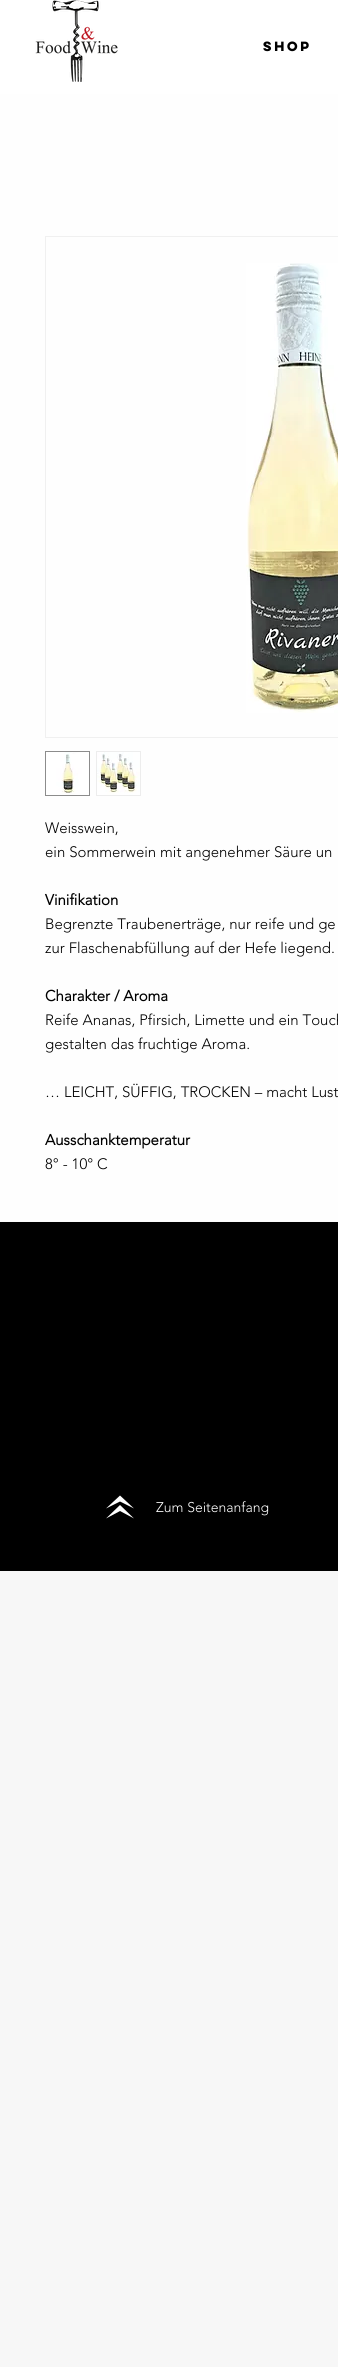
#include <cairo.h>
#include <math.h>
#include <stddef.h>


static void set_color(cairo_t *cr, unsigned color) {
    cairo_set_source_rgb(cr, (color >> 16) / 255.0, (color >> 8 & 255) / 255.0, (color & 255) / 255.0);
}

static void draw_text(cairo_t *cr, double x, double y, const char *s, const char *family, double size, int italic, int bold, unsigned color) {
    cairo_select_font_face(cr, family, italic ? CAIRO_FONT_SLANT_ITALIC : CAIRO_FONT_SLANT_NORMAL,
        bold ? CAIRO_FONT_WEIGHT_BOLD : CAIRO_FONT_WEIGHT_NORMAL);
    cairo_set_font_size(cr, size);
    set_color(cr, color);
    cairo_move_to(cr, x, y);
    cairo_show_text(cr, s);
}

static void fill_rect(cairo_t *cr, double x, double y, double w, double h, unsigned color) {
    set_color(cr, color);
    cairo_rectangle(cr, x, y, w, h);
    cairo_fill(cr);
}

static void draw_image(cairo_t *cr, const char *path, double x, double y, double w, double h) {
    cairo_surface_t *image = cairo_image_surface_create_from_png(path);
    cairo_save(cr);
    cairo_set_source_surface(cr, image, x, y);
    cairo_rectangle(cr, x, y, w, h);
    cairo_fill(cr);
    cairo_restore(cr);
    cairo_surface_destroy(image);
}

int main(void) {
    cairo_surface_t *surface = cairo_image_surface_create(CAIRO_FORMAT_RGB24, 338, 2367);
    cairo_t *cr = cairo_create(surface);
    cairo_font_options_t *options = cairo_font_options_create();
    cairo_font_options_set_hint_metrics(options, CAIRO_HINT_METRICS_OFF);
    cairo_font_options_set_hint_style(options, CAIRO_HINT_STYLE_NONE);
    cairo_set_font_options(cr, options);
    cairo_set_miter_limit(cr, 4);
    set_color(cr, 0xF7F7F7);
    cairo_paint(cr);
    fill_rect(cr, 0, 0, 338, 94, 0xFFFFFF);
    draw_image(cr, "assets/img1.png", 35, 0, 83, 82);
    draw_text(cr, 263, 51, "Shop", "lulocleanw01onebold", 12, 0, 1, 0x000000);
    fill_rect(cr, 0, 94, 338, 1127, 0xFEFEFE);
    cairo_rectangle(cr, 45.5, 236.5, 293, 501);
    set_color(cr, 0xF0F0F0);
    cairo_set_line_width(cr, 1);
    cairo_stroke(cr);
    draw_image(cr, "assets/img2.png", 246, 263, 92, 450);
    cairo_rectangle(cr, 45.5, 751.5, 44, 44);
    set_color(cr, 0x8C8C8C);
    cairo_stroke(cr);
    draw_image(cr, "assets/img3.png", 46, 752, 43, 43);
    fill_rect(cr, 96, 751, 45, 45, 0xEDEDED);
    draw_image(cr, "assets/img4.png", 97, 752, 43, 43);
    draw_text(cr, 45, 833, "Weisswein,", "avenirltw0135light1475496 Light", 15, 0, 0, 0x000000);
    draw_text(cr, 45, 857, "ein Sommerwein mit angenehmer Säure un", "avenirltw0135light1475496 Light", 15, 0, 0, 0x000000);
    draw_text(cr, 45, 905, "Vinifikation", "avenirltw0135light1475496", 15, 0, 1, 0x000000);
    draw_text(cr, 45, 929, "Begrenzte Traubenerträge, nur reife und ge", "avenirltw0135light1475496 Light", 15, 0, 0, 0x000000);
    draw_text(cr, 45, 953, "zur Flaschenabfüllung auf der Hefe liegend.", "avenirltw0135light1475496 Light", 15, 0, 0, 0x000000);
    draw_text(cr, 45, 1001, "Charakter / Aroma", "avenirltw0135light1475496", 15, 0, 1, 0x000000);
    draw_text(cr, 45, 1025, "Reife Ananas, Pfirsich, Limette und ein Touch", "avenirltw0135light1475496 Light", 15, 0, 0, 0x000000);
    draw_text(cr, 45, 1049, "gestalten das fruchtige Aroma.", "avenirltw0135light1475496 Light", 15, 0, 0, 0x000000);
    draw_text(cr, 45, 1097, "… LEICHT, SÜFFIG, TROCKEN – macht Lust", "avenirltw0135light1475496 Light", 15, 0, 0, 0x000000);
    draw_text(cr, 45, 1145, "Ausschanktemperatur", "avenirltw0135light1475496", 15, 0, 1, 0x000000);
    draw_text(cr, 45, 1169, "8° - 10° C", "avenirltw0135light1475496 Light", 15, 0, 0, 0x000000);
    fill_rect(cr, 0, 1221, 338, 1, 0xFCFCFC);
    fill_rect(cr, 0, 1222, 338, 349, 0x000000);
    set_color(cr, 0xFFFFFF);
    cairo_new_path(cr);
    cairo_move_to(cr, 106, 1508.5);
    cairo_line_to(cr, 120, 1495.5);
    cairo_line_to(cr, 134, 1508.5);
    cairo_line_to(cr, 120, 1501.5);
    cairo_close_path(cr);
    cairo_fill(cr);
    cairo_new_path(cr);
    cairo_move_to(cr, 106, 1518.5);
    cairo_line_to(cr, 120, 1505);
    cairo_line_to(cr, 134, 1518.5);
    cairo_line_to(cr, 120, 1511);
    cairo_close_path(cr);
    cairo_fill(cr);
    draw_text(cr, 156, 1512, "Zum Seitenanfang", "avenirltw0135light1475496 Light", 14, 0, 0, 0xFFFFFF);
    cairo_surface_write_to_png(surface, "output.png");
    cairo_font_options_destroy(options);
    cairo_destroy(cr);
    cairo_surface_destroy(surface);
    return 0;
}
